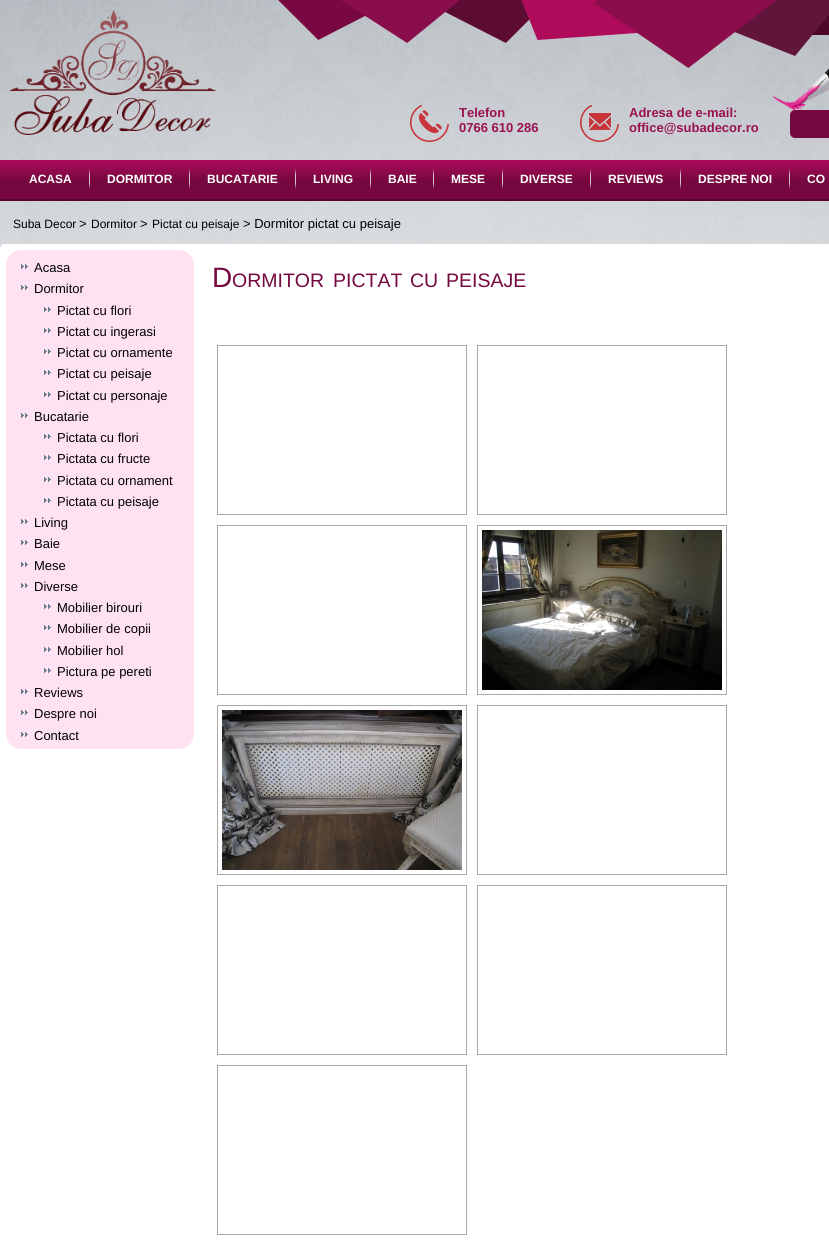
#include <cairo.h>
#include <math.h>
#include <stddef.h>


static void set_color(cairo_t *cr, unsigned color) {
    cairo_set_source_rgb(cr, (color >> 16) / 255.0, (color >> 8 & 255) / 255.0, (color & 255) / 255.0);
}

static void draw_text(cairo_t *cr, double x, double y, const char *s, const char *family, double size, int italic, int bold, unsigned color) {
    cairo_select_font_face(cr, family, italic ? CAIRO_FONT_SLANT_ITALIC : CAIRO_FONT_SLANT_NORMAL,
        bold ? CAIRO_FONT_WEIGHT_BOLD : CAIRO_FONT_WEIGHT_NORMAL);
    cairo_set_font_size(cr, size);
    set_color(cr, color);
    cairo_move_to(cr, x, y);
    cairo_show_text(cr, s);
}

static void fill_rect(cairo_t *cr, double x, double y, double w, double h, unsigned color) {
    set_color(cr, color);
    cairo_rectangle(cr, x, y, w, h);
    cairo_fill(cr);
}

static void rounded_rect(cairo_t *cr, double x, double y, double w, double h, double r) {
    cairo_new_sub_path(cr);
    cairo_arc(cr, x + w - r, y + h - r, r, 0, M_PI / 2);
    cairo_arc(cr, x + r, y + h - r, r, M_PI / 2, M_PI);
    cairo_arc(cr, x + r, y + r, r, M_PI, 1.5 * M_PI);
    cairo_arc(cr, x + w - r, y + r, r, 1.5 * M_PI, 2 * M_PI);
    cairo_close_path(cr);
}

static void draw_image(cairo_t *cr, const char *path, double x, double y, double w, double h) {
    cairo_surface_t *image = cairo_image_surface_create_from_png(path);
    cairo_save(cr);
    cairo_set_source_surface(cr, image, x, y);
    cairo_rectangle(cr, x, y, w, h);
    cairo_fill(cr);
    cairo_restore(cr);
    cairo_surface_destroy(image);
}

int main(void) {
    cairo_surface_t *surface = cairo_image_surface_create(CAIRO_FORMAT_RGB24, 829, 1255);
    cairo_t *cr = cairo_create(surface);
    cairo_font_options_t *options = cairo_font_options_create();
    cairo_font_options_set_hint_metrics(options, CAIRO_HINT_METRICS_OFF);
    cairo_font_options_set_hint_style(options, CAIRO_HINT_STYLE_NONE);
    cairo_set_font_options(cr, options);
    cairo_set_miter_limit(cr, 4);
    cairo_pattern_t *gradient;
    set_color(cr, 0xFFFFFF);
    cairo_paint(cr);
    draw_image(cr, "assets/img1.png", 0, 0, 829, 249);
    draw_image(cr, "assets/img2.png", 10, 10, 206, 125);
    draw_image(cr, "assets/img3.png", 278, 0, 551, 111);
    draw_image(cr, "assets/img4.png", 410, 105, 39, 37);
    draw_text(cr, 459, 117, "Telefon", "Liberation Sans", 13, 0, 1, 0x991150);
    draw_text(cr, 459, 132, "0766 610 286", "Liberation Sans", 13, 0, 1, 0x991150);
    draw_image(cr, "assets/img5.png", 580, 105, 39, 37);
    draw_text(cr, 629, 117, "Adresa de e-mail:", "Liberation Sans", 13, 0, 1, 0x991150);
    draw_text(cr, 629, 132, "office@subadecor.ro", "Liberation Sans", 13, 0, 1, 0x991150);
    set_color(cr, 0x77083F);
    rounded_rect(cr, 790, 110, 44, 28, 5);
    cairo_fill(cr);
    gradient = cairo_pattern_create_linear(500, 160, 500, 201);
    cairo_pattern_add_color_stop_rgba(gradient, 0, 0.682, 0.043, 0.357, 1);
    cairo_pattern_add_color_stop_rgba(gradient, 0.5, 0.463, 0.031, 0.247, 1);
    cairo_pattern_add_color_stop_rgba(gradient, 1, 0.463, 0.031, 0.247, 1);
    cairo_set_source(cr, gradient);
    cairo_pattern_destroy(gradient);
    cairo_rectangle(cr, 0, 160, 829, 39);
    cairo_fill(cr);
    fill_rect(cr, 0, 199, 829, 2, 0x58022D);
    draw_text(cr, 29, 183, "ACASA", "Liberation Sans", 12, 0, 1, 0xFFFFFF);
    draw_image(cr, "assets/img6.png", 89, 169, 1, 20);
    draw_text(cr, 107, 183, "DORMITOR", "Liberation Sans", 12, 0, 1, 0xFFFFFF);
    draw_image(cr, "assets/img6.png", 189, 169, 1, 20);
    draw_text(cr, 207, 183, "BUCATARIE", "Liberation Sans", 12, 0, 1, 0xFFFFFF);
    draw_image(cr, "assets/img6.png", 295, 169, 1, 20);
    draw_text(cr, 313, 183, "LIVING", "Liberation Sans", 12, 0, 1, 0xFFFFFF);
    draw_image(cr, "assets/img6.png", 370, 169, 1, 20);
    draw_text(cr, 388, 183, "BAIE", "Liberation Sans", 12, 0, 1, 0xFFFFFF);
    draw_image(cr, "assets/img6.png", 433, 169, 1, 20);
    draw_text(cr, 451, 183, "MESE", "Liberation Sans", 12, 0, 1, 0xFFFFFF);
    draw_image(cr, "assets/img6.png", 502, 169, 1, 20);
    draw_text(cr, 520, 183, "DIVERSE", "Liberation Sans", 12, 0, 1, 0xFFFFFF);
    draw_image(cr, "assets/img6.png", 590, 169, 1, 20);
    draw_text(cr, 608, 183, "REVIEWS", "Liberation Sans", 12, 0, 1, 0xFFFFFF);
    draw_image(cr, "assets/img6.png", 680, 169, 1, 20);
    draw_text(cr, 698, 183, "DESPRE NOI", "Liberation Sans", 12, 0, 1, 0xFFFFFF);
    draw_image(cr, "assets/img6.png", 789, 169, 1, 20);
    draw_text(cr, 807, 183, "CO", "Liberation Sans", 12, 0, 1, 0xFFFFFF);
    draw_text(cr, 13, 228, "Suba Decor", "Liberation Sans", 12, 0, 0, 0x000000);
    draw_text(cr, 79, 228, ">", "Liberation Sans", 13, 0, 0, 0x000000);
    draw_text(cr, 91, 228, "Dormitor", "Liberation Sans", 12, 0, 0, 0x000000);
    draw_text(cr, 140, 228, ">", "Liberation Sans", 13, 0, 0, 0x000000);
    draw_text(cr, 152, 228, "Pictat cu peisaje", "Liberation Sans", 12, 0, 0, 0x000000);
    draw_text(cr, 243, 228, "> Dormitor pictat cu peisaje", "Liberation Sans", 13, 0, 0, 0x000000);
    set_color(cr, 0xFFFFFF);
    rounded_rect(cr, 0, 244, 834, 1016, 5);
    cairo_fill(cr);
    set_color(cr, 0xFFE2F1);
    rounded_rect(cr, 6, 250, 188, 499, 15);
    cairo_fill(cr);
    draw_image(cr, "assets/img7.png", 21, 264, 7, 5);
    draw_text(cr, 34, 272, "Acasa", "Liberation Sans", 13, 0, 0, 0x000000);
    draw_image(cr, "assets/img7.png", 21, 285, 7, 5);
    draw_text(cr, 34, 293, "Dormitor", "Liberation Sans", 13, 0, 0, 0x000000);
    draw_image(cr, "assets/img7.png", 44, 307, 7, 5);
    draw_text(cr, 57, 315, "Pictat cu flori", "Liberation Sans", 13, 0, 0, 0x000000);
    draw_image(cr, "assets/img7.png", 44, 328, 7, 5);
    draw_text(cr, 57, 336, "Pictat cu ingerasi", "Liberation Sans", 13, 0, 0, 0x000000);
    draw_image(cr, "assets/img7.png", 44, 349, 7, 5);
    draw_text(cr, 57, 357, "Pictat cu ornamente", "Liberation Sans", 13, 0, 0, 0x000000);
    draw_image(cr, "assets/img7.png", 44, 370, 7, 5);
    draw_text(cr, 57, 378, "Pictat cu peisaje", "Liberation Sans", 13, 0, 0, 0x000000);
    draw_image(cr, "assets/img7.png", 44, 392, 7, 5);
    draw_text(cr, 57, 400, "Pictat cu personaje", "Liberation Sans", 13, 0, 0, 0x000000);
    draw_image(cr, "assets/img7.png", 21, 413, 7, 5);
    draw_text(cr, 34, 421, "Bucatarie", "Liberation Sans", 13, 0, 0, 0x000000);
    draw_image(cr, "assets/img7.png", 44, 434, 7, 5);
    draw_text(cr, 57, 442, "Pictata cu flori", "Liberation Sans", 13, 0, 0, 0x000000);
    draw_image(cr, "assets/img7.png", 44, 455, 7, 5);
    draw_text(cr, 57, 463, "Pictata cu fructe", "Liberation Sans", 13, 0, 0, 0x000000);
    draw_image(cr, "assets/img7.png", 44, 477, 7, 5);
    draw_text(cr, 57, 485, "Pictata cu ornament", "Liberation Sans", 13, 0, 0, 0x000000);
    draw_image(cr, "assets/img7.png", 44, 498, 7, 5);
    draw_text(cr, 57, 506, "Pictata cu peisaje", "Liberation Sans", 13, 0, 0, 0x000000);
    draw_image(cr, "assets/img7.png", 21, 519, 7, 5);
    draw_text(cr, 34, 527, "Living", "Liberation Sans", 13, 0, 0, 0x000000);
    draw_image(cr, "assets/img7.png", 21, 540, 7, 5);
    draw_text(cr, 34, 548, "Baie", "Liberation Sans", 13, 0, 0, 0x000000);
    draw_image(cr, "assets/img7.png", 21, 562, 7, 5);
    draw_text(cr, 34, 570, "Mese", "Liberation Sans", 13, 0, 0, 0x000000);
    draw_image(cr, "assets/img7.png", 21, 583, 7, 5);
    draw_text(cr, 34, 591, "Diverse", "Liberation Sans", 13, 0, 0, 0x000000);
    draw_image(cr, "assets/img7.png", 44, 604, 7, 5);
    draw_text(cr, 57, 612, "Mobilier birouri", "Liberation Sans", 13, 0, 0, 0x000000);
    draw_image(cr, "assets/img7.png", 44, 625, 7, 5);
    draw_text(cr, 57, 633, "Mobilier de copii", "Liberation Sans", 13, 0, 0, 0x000000);
    draw_image(cr, "assets/img7.png", 44, 647, 7, 5);
    draw_text(cr, 57, 655, "Mobilier hol", "Liberation Sans", 13, 0, 0, 0x000000);
    draw_image(cr, "assets/img7.png", 44, 668, 7, 5);
    draw_text(cr, 57, 676, "Pictura pe pereti", "Liberation Sans", 13, 0, 0, 0x000000);
    draw_image(cr, "assets/img7.png", 21, 689, 7, 5);
    draw_text(cr, 34, 697, "Reviews", "Liberation Sans", 13, 0, 0, 0x000000);
    draw_image(cr, "assets/img7.png", 21, 710, 7, 5);
    draw_text(cr, 34, 718, "Despre noi", "Liberation Sans", 13, 0, 0, 0x000000);
    draw_image(cr, "assets/img7.png", 21, 732, 7, 5);
    draw_text(cr, 34, 740, "Contact", "Liberation Sans", 13, 0, 0, 0x000000);
    draw_text(cr, 212, 287, "D", "Liberation Sans", 28, 0, 0, 0x75083F);
    draw_text(cr, 232, 287, "ORMITOR", "Liberation Sans", 19.5, 0, 0, 0x75083F);
    draw_text(cr, 333, 287, "PICTAT", "Liberation Sans", 19.5, 0, 0, 0x75083F);
    draw_text(cr, 410, 287, "CU", "Liberation Sans", 19.5, 0, 0, 0x75083F);
    draw_text(cr, 446, 287, "PEISAJE", "Liberation Sans", 19.5, 0, 0, 0x75083F);
    cairo_rectangle(cr, 217.5, 345.5, 249, 169);
    set_color(cr, 0xA9A9A9);
    cairo_set_line_width(cr, 1);
    cairo_stroke(cr);
    cairo_rectangle(cr, 477.5, 345.5, 249, 169);
    cairo_stroke(cr);
    cairo_rectangle(cr, 217.5, 525.5, 249, 169);
    cairo_stroke(cr);
    cairo_rectangle(cr, 477.5, 525.5, 249, 169);
    cairo_stroke(cr);
    draw_image(cr, "assets/img8.png", 482, 530, 240, 160);
    cairo_rectangle(cr, 217.5, 705.5, 249, 169);
    cairo_stroke(cr);
    draw_image(cr, "assets/img9.png", 222, 710, 240, 160);
    cairo_rectangle(cr, 477.5, 705.5, 249, 169);
    cairo_stroke(cr);
    cairo_rectangle(cr, 217.5, 885.5, 249, 169);
    cairo_stroke(cr);
    cairo_rectangle(cr, 477.5, 885.5, 249, 169);
    cairo_stroke(cr);
    cairo_rectangle(cr, 217.5, 1065.5, 249, 169);
    cairo_stroke(cr);
    cairo_surface_write_to_png(surface, "output.png");
    cairo_font_options_destroy(options);
    cairo_destroy(cr);
    cairo_surface_destroy(surface);
    return 0;
}
